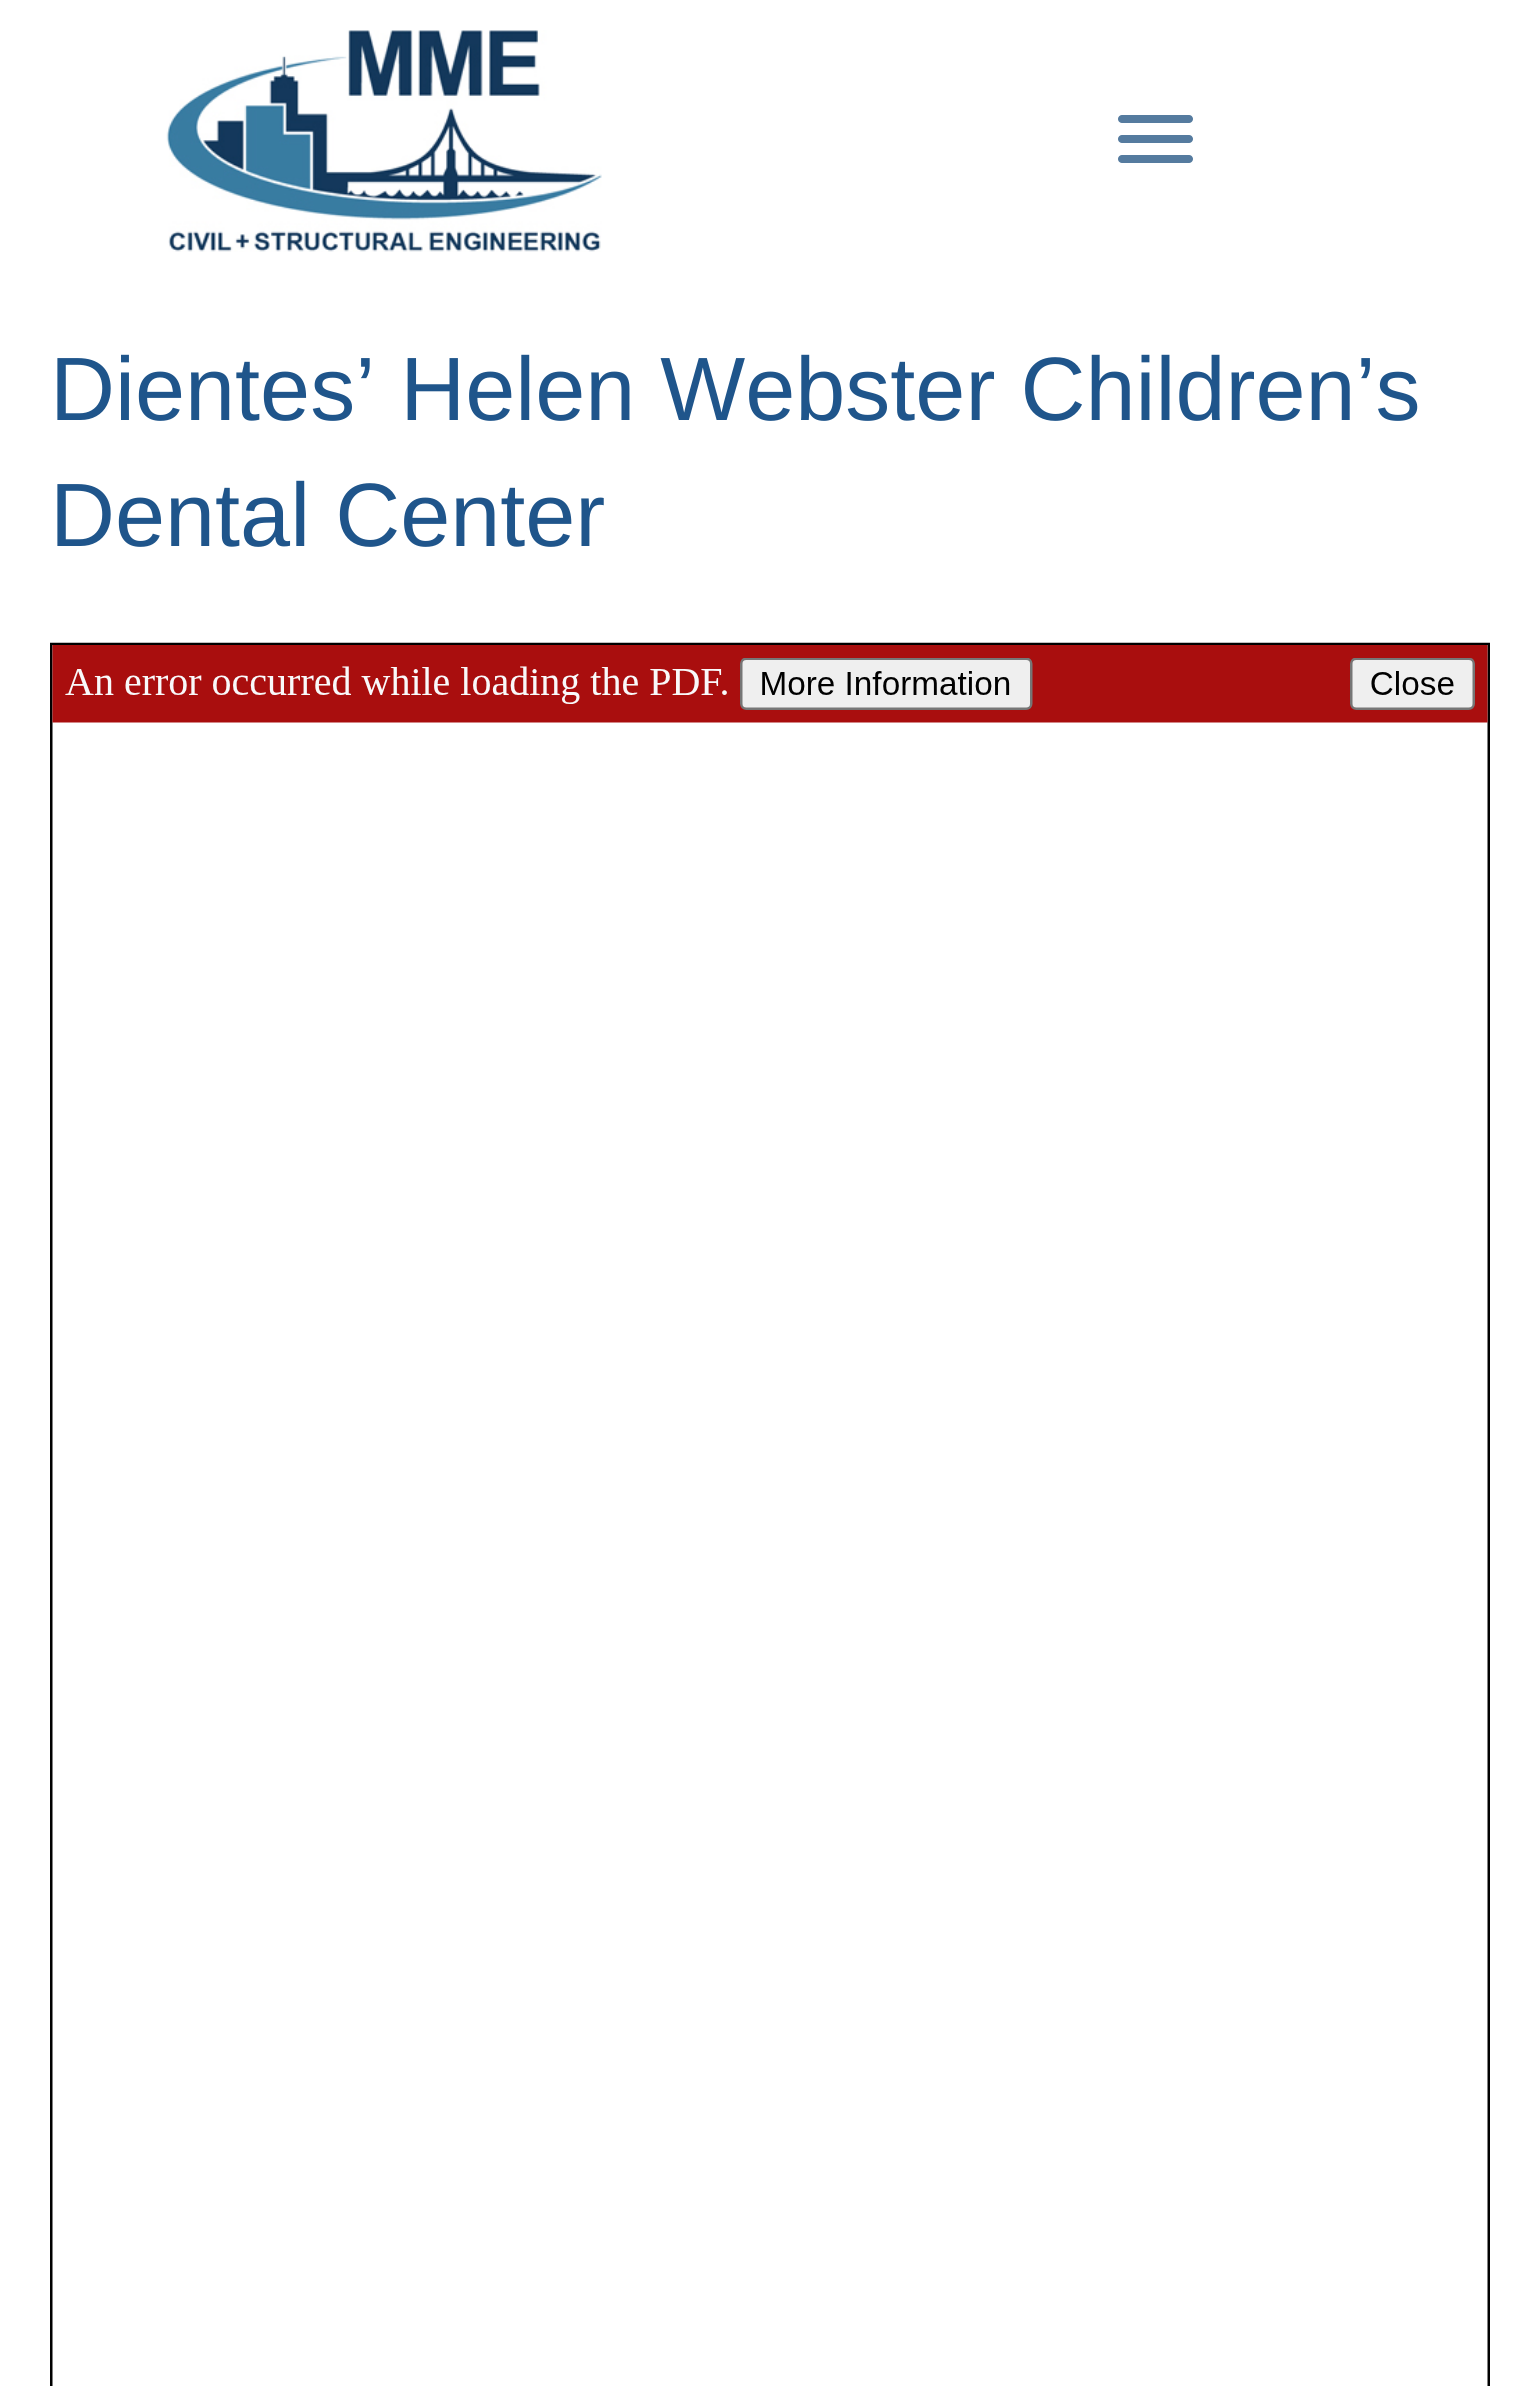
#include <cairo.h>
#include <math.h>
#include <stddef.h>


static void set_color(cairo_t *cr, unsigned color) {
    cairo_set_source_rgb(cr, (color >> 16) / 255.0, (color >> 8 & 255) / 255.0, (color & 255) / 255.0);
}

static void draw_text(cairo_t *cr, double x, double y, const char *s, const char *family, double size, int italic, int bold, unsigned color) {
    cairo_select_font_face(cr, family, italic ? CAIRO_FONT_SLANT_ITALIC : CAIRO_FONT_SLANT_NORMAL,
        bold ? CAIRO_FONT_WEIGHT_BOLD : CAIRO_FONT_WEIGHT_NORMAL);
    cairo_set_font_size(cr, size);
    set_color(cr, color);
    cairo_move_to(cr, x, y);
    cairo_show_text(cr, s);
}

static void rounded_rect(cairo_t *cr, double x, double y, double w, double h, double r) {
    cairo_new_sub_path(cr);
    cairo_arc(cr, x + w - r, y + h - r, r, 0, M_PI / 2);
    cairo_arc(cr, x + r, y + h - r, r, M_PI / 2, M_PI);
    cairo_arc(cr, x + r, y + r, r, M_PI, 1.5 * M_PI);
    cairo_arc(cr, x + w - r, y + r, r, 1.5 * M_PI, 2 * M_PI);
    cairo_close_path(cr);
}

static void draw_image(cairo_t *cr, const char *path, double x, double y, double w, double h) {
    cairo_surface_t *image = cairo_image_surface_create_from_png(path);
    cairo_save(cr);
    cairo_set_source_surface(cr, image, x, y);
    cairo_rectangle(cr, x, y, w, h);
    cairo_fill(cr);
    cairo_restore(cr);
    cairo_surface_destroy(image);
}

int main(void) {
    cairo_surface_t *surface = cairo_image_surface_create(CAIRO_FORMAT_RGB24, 1538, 2386);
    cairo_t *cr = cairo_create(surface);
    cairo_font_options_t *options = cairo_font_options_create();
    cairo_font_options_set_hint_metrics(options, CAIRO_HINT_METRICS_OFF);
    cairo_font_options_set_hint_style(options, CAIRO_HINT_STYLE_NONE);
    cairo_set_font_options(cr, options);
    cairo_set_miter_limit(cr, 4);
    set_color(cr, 0xFFFFFF);
    cairo_paint(cr);
    draw_image(cr, "assets/img1.png", 166, 30, 436, 222);
    set_color(cr, 0x557B9F);
    rounded_rect(cr, 1118, 135, 75, 8, 4);
    cairo_fill(cr);
    rounded_rect(cr, 1118, 115, 75, 8, 4);
    cairo_fill(cr);
    rounded_rect(cr, 1118, 155, 75, 8, 4);
    cairo_fill(cr);
    draw_text(cr, 50, 420, "Dientes’ Helen Webster Children’s", "Liberation Sans", 90, 0, 0, 0x1F558B);
    draw_text(cr, 50, 546, "Dental Center", "Liberation Sans", 90, 0, 0, 0x1F558B);
    draw_image(cr, "assets/img2.png", 50, 642, 1440, 1744);
    cairo_surface_write_to_png(surface, "output.png");
    cairo_font_options_destroy(options);
    cairo_destroy(cr);
    cairo_surface_destroy(surface);
    return 0;
}
